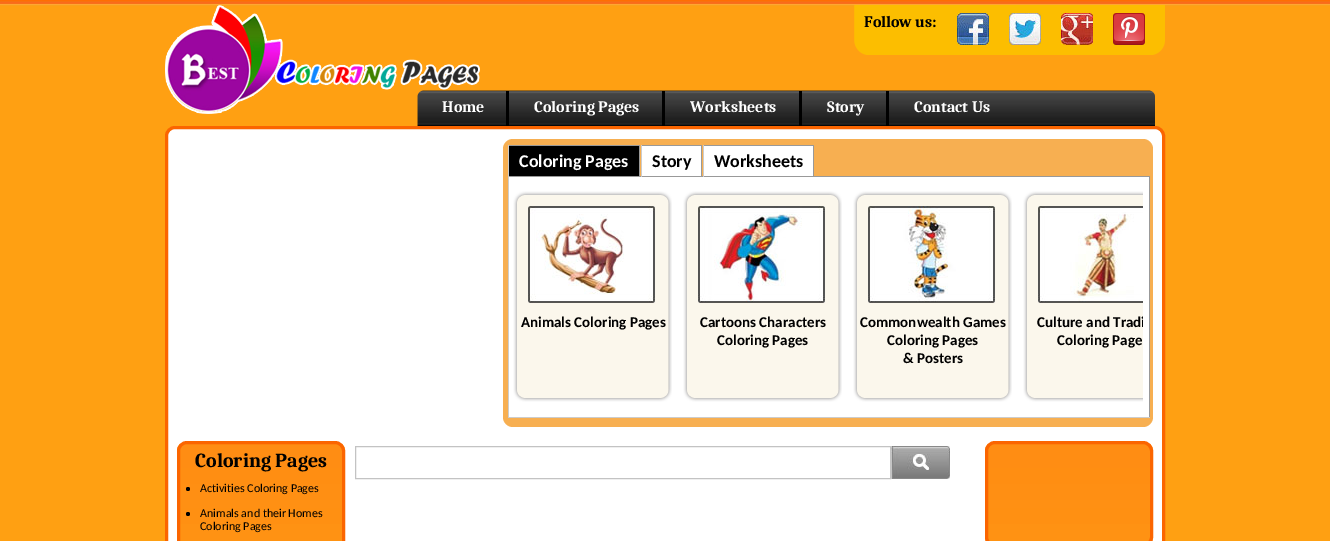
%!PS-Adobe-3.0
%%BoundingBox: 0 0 1330 541
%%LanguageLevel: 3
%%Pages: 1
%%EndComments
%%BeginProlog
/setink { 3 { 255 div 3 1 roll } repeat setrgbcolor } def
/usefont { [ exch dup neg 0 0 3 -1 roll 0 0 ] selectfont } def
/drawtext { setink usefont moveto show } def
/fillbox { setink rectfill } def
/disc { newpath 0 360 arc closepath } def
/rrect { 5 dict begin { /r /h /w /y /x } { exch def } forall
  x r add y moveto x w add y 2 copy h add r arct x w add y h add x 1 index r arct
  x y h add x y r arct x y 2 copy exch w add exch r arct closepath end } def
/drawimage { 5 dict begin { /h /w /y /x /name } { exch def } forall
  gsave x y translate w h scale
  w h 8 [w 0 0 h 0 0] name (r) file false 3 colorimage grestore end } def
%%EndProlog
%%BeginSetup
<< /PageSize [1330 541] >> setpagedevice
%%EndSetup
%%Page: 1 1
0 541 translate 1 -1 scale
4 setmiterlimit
0 0 1330 541 255 160 18 fillbox
(assets/img1.rgb) 0 0 1330 6 drawimage
(assets/img2.rgb) 165 5 315 109 drawimage
(assets/img3.rgb) 854 5 311 50 drawimage
(Follow us:) 864 27 /Caladea-Bold 16 0 0 0 drawtext
(assets/img4.rgb) 957 13 32 32 drawimage
(assets/img5.rgb) 1009 13 32 32 drawimage
(assets/img6.rgb) 1061 13 32 32 drawimage
(assets/img7.rgb) 1113 13 32 32 drawimage
(assets/img8.rgb) 417 90 738 36 drawimage
506 91 3 35 0 0 0 fillbox
(Home) 442 112 /Caladea-Bold 16 255 255 255 drawtext
662 91 3 35 0 0 0 fillbox
(Coloring Pages) 534 112 /Caladea-Bold 16 255 255 255 drawtext
799 91 3 35 0 0 0 fillbox
(Worksheets) 690 112 /Caladea-Bold 16 255 255 255 drawtext
886 91 3 35 0 0 0 fillbox
(Story) 827 112 /Caladea-Bold 16 255 255 255 drawtext
(Contact Us) 914 112 /Caladea-Bold 16 255 255 255 drawtext
166.5 127.5 997 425 8.5 rrect gsave fill grestore
251 101 0 setink
3 setlinewidth
stroke
247 175 81 setink
503 139 650 288 10 rrect fill
509 146 130 30 0 0 0 fillbox
508 145 132 1 153 153 153 fillbox
639 145 1 32 153 153 153 fillbox
640 176 510 1 153 153 153 fillbox
1149 176 1 242 153 153 153 fillbox
508 417 642 1 204 204 204 fillbox
508 176 1 242 204 204 204 fillbox
508 176 132 1 153 153 153 fillbox
508 145 1 32 204 204 204 fillbox
(Coloring Pages) 519 167 /Carlito-Bold 18 255 255 255 drawtext
642 146 59 30 255 255 255 fillbox
641 145 61 1 153 153 153 fillbox
701 145 1 32 153 153 153 fillbox
641 145 1 32 204 204 204 fillbox
(Story) 652 167 /Carlito-Bold 18 0 0 0 drawtext
704 146 109 30 255 255 255 fillbox
703 145 111 1 153 153 153 fillbox
813 145 1 32 153 153 153 fillbox
703 145 1 32 204 204 204 fillbox
(Worksheets) 714 167 /Carlito-Bold 18 0 0 0 drawtext
509 177 640 240 255 255 255 fillbox
(assets/img9.rgb) 513 191 159 211 drawimage
(assets/img10.rgb) 528 206 127 97 drawimage
(Animals Coloring Pages) 521 327 /Carlito-Bold 15 0 0 0 drawtext
(assets/img9.rgb) 683 191 159 211 drawimage
(assets/img11.rgb) 698 206 127 97 drawimage
(Cartoons Characters) 700 327 /Carlito-Bold 15 0 0 0 drawtext
(Coloring Pages) 717 345 /Carlito-Bold 15 0 0 0 drawtext
(assets/img9.rgb) 853 191 159 211 drawimage
(assets/img12.rgb) 868 206 127 97 drawimage
(Commonwealth Games) 860 327 /Carlito-Bold 15 0 0 0 drawtext
(Coloring Pages) 887 345 /Carlito-Bold 15 0 0 0 drawtext
(& Posters) 903 363 /Carlito-Bold 15 0 0 0 drawtext
(assets/img13.rgb) 1023 191 120 211 drawimage
(assets/img14.rgb) 1038 206 105 97 drawimage
gsave
513 191 630 240 rectclip
(Culture and Tradi) 1037 327 /Carlito-Bold 15 0 0 0 drawtext
grestore
(Coloring Page) 1057 345 /Carlito-Bold 15 0 0 0 drawtext
(assets/img15.rgb) 177 444 168 97 drawimage
251 101 0 setink
178.5 442.5 165 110 8.5 rrect stroke
(Coloring Pages) 195 467 /Caladea-Bold 20 0 0 0 drawtext
188 489 2 disc fill
(Activities Coloring Pages) 200 492 /Carlito-Regular 12 0 0 0 drawtext
188 514 2 disc fill
(Animals and their Homes) 200 517 /Carlito-Regular 12 0 0 0 drawtext
(Coloring Pages) 200 530 /Carlito-Regular 12 0 0 0 drawtext
195 195 195 setink
1 setlinewidth
355.5 446.5 535 32 rectstroke
(assets/img16.rgb) 891 446 59 33 drawimage
(assets/img17.rgb) 985 444 168 97 drawimage
251 101 0 setink
3 setlinewidth
986.5 442.5 165 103 8.5 rrect stroke
showpage
%%EOF
